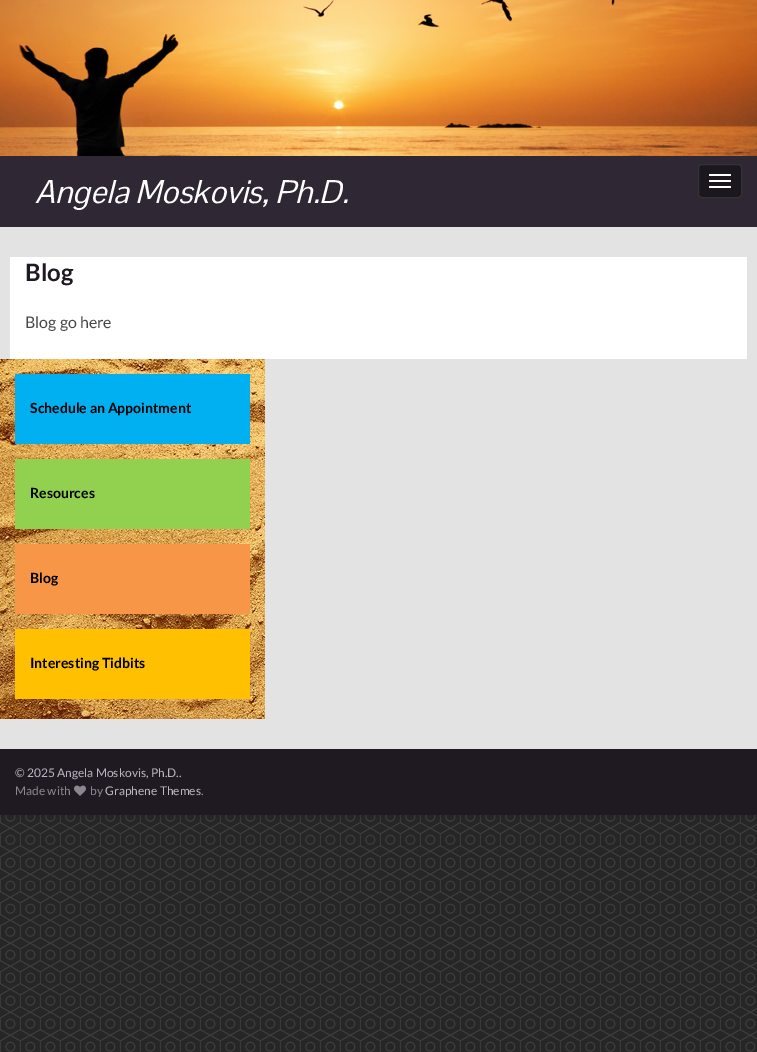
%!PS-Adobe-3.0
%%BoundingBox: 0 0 757 1052
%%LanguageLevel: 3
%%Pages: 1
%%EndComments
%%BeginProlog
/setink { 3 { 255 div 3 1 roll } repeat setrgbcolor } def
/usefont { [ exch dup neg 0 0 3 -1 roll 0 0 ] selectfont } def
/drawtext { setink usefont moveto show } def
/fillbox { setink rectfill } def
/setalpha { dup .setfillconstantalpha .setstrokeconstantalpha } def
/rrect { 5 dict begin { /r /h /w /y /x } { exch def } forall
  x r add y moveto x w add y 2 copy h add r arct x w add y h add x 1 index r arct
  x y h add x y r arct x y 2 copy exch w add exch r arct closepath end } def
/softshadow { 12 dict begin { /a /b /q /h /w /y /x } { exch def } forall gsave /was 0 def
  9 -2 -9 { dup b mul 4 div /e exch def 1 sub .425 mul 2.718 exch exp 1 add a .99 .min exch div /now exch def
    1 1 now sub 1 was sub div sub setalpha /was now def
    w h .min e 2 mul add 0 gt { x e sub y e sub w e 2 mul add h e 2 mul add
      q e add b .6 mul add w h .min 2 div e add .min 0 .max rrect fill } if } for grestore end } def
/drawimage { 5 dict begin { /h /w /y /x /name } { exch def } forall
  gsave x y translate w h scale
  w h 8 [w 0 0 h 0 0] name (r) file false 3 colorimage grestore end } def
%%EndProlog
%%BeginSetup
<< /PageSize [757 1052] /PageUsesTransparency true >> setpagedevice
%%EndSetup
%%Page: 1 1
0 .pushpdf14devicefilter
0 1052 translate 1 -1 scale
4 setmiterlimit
0 0 757 1052 255 255 255 fillbox
(assets/img1.rgb) 0 815 757 237 drawimage
0 0 0 setink
0 0 757 815 0 5 0.1 softshadow
(assets/img2.rgb) 0 0 757 156 drawimage
0 156 757 71 47 39 51 fillbox
(Angela Moskovis, Ph.D.) 35 203 /PontanoSans-Italic 32 255 255 255 drawtext
28 23 31 setink
698.5 164.5 43 33 3.5 rrect gsave fill grestore
51 51 51 setink
stroke
255 255 255 setink
709 174 22 2 1 rrect fill
709 180 22 2 1 rrect fill
709 186 22 2 1 rrect fill
0 227 757 522 227 227 227 fillbox
10 257 737 102 255 255 255 fillbox
(Blog) 25 281 /Lato-Bold 24 31 26 34 drawtext
(Blog go here) 25 328 /Lato-Regular 16 74 71 75 drawtext
(assets/img3.rgb) 0 359 265 360 drawimage
15 374 235 70 1 176 241 fillbox
(Schedule an Appointment) 30 413 /Lato-Bold 14 0 0 0 drawtext
15 459 235 70 146 209 79 fillbox
(Resources) 30 498 /Lato-Bold 14 0 0 0 drawtext
15 544 235 70 247 150 71 fillbox
(Blog) 30 583 /Lato-Bold 14 0 0 0 drawtext
15 629 235 70 255 192 1 fillbox
(Interesting Tidbits) 30 668 /Lato-Bold 14 0 0 0 drawtext
0 749 757 66 31 26 34 fillbox
(© 2025 Angela Moskovis, Ph.D..) 15 777 /Lato-Regular 12 188 180 193 drawtext
(Made with) 15 795 /Lato-Regular 12 141 134 145 drawtext
(assets/img4.rgb) 74 785 12 11 drawimage
(by) 90 795 /Lato-Regular 12 141 134 145 drawtext
(Graphene Themes) 105 795 /Lato-Regular 12 188 186 189 drawtext
(.) 201 795 /Lato-Regular 12 141 134 145 drawtext
.poppdf14devicefilter showpage
%%EOF
